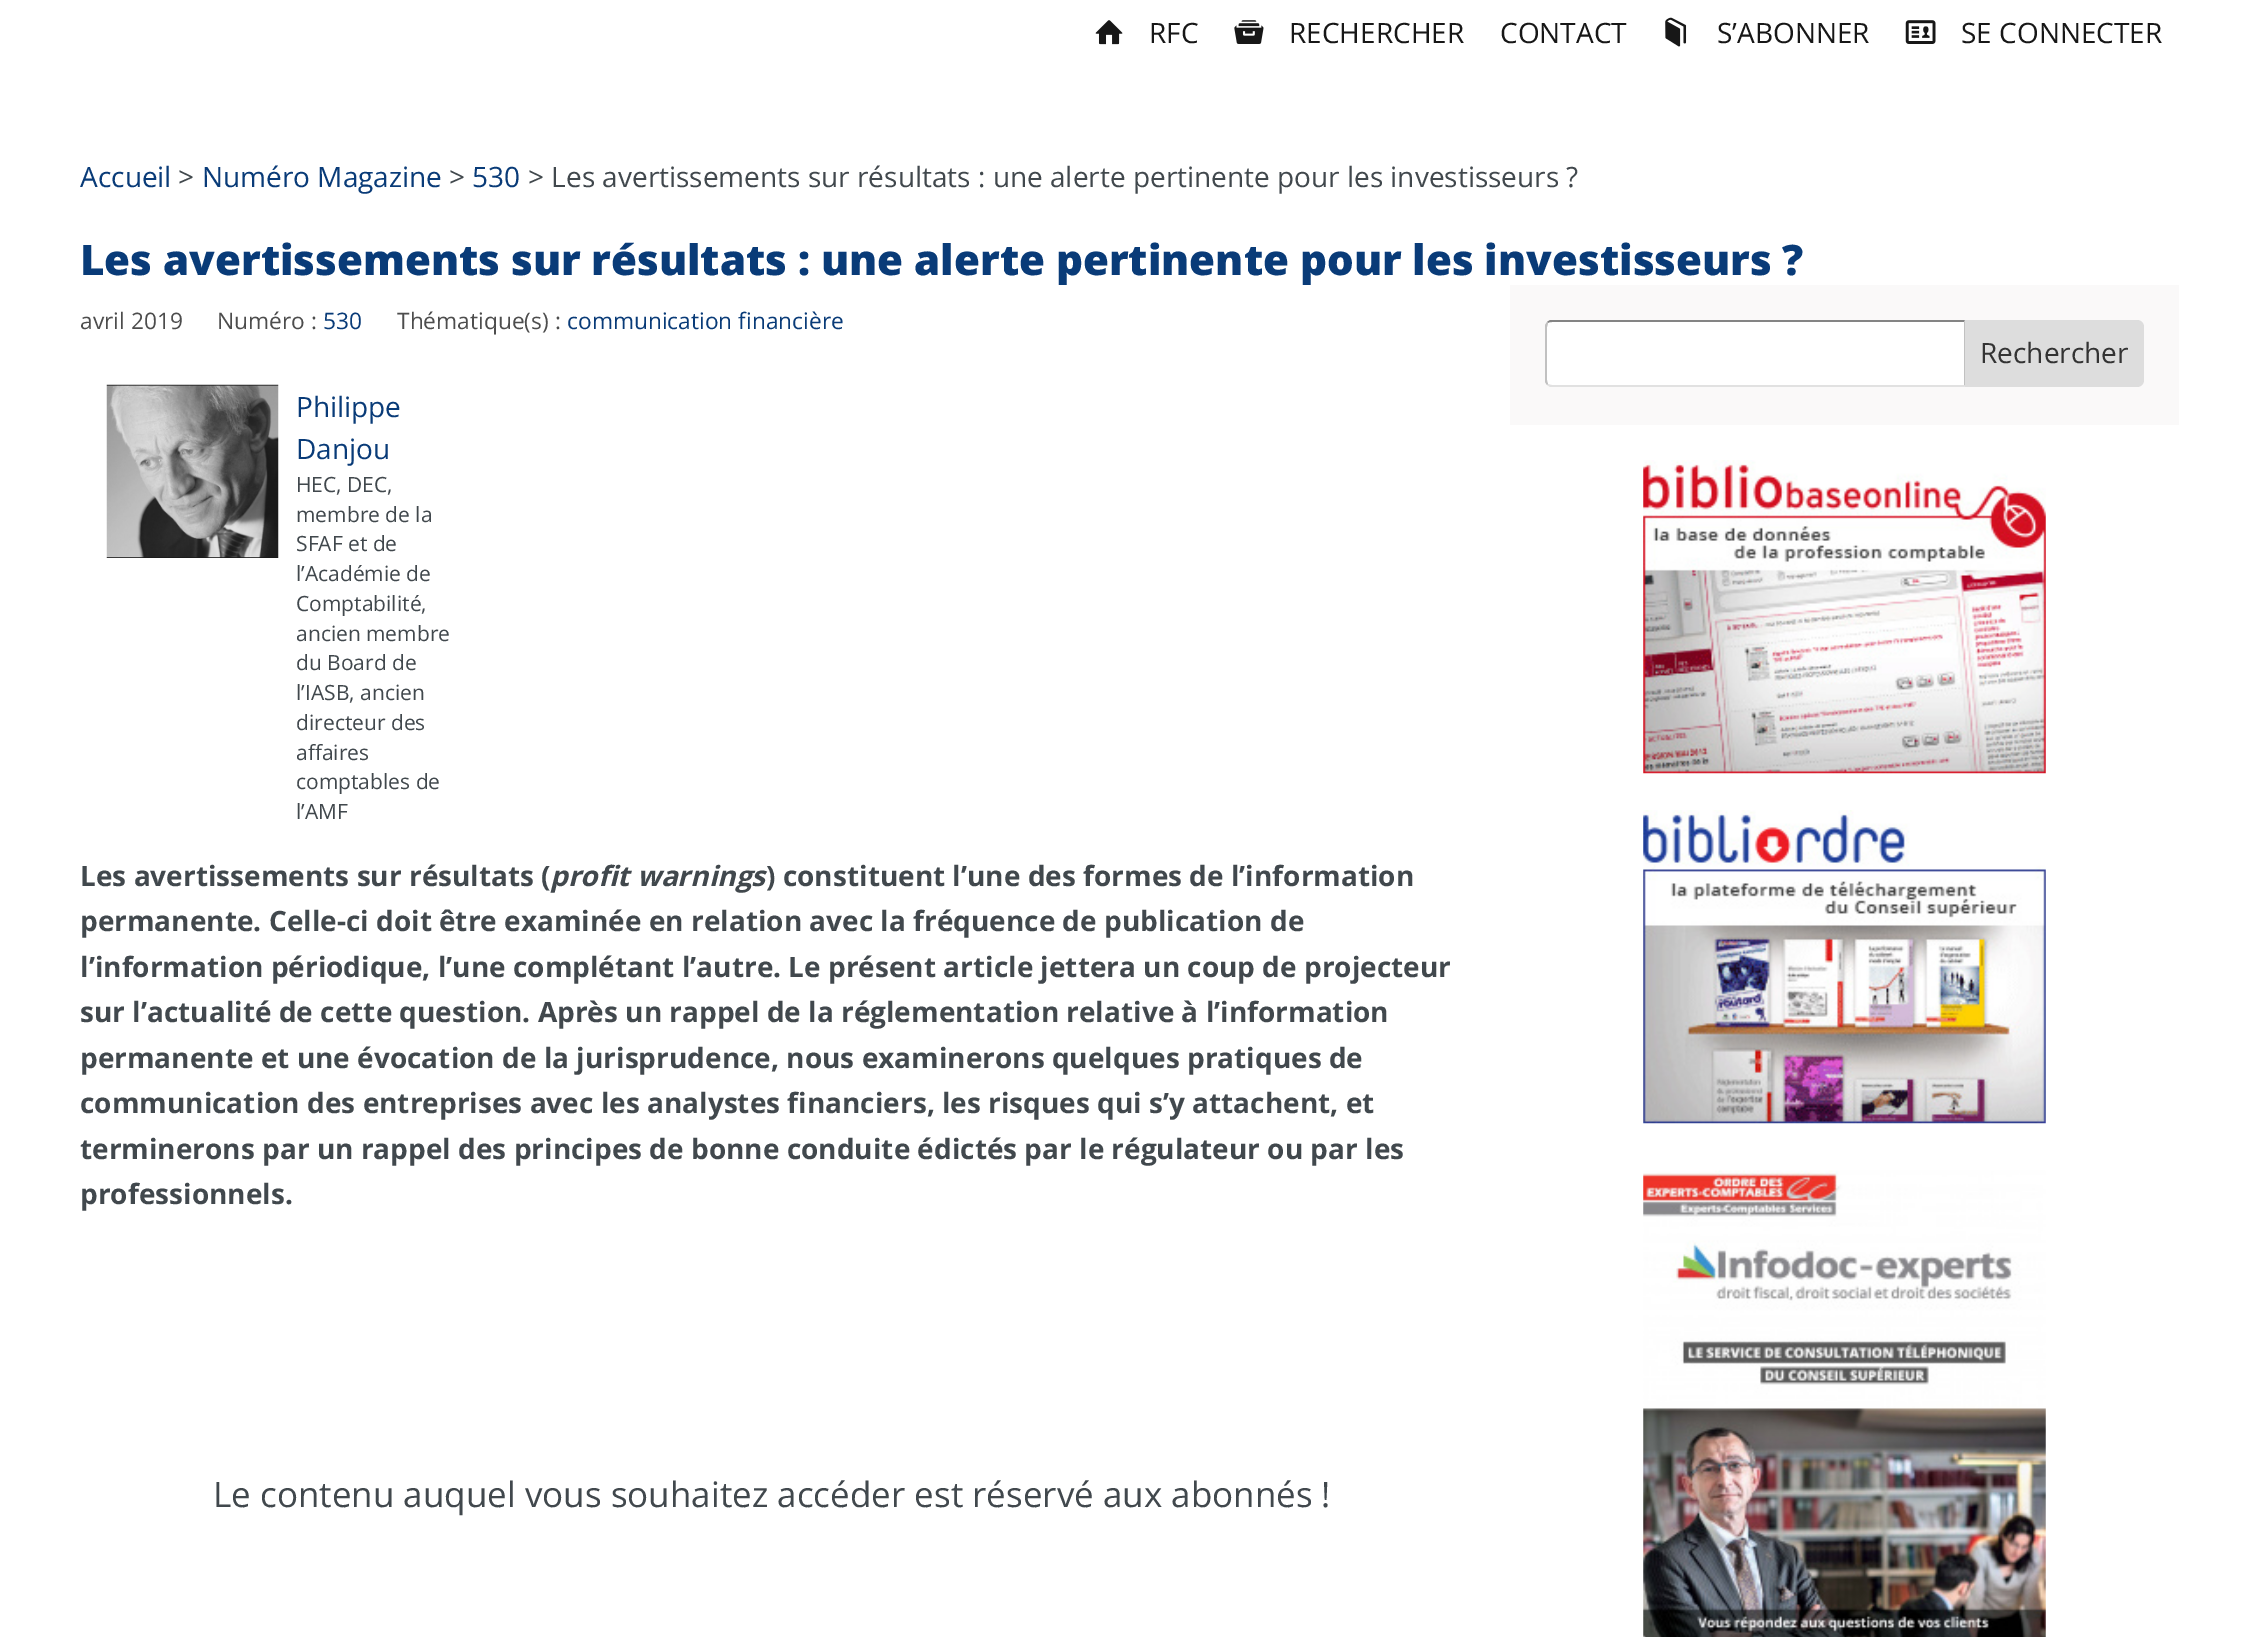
%!PS-Adobe-3.0
%%BoundingBox: 0 0 2259 1637
%%LanguageLevel: 3
%%Pages: 1
%%EndComments
%%BeginProlog
/setink { 3 { 255 div 3 1 roll } repeat setrgbcolor } def
/usefont { [ exch dup neg 0 0 3 -1 roll 0 0 ] selectfont } def
/drawtext { setink usefont moveto show } def
/fillbox { setink rectfill } def
/drawimage { 5 dict begin { /h /w /y /x /name } { exch def } forall
  gsave x y translate w h scale
  w h 8 [w 0 0 h 0 0] name (r) file false 3 colorimage grestore end } def
%%EndProlog
%%BeginSetup
<< /PageSize [2259 1637] >> setpagedevice
%%EndSetup
%%Page: 1 1
0 1637 translate 1 -1 scale
4 setmiterlimit
0 0 2259 1637 255 255 255 fillbox
(assets/img1.rgb) 1095 20 28 25 drawimage
(RFC) 1149 43 /OpenSans-Regular 28 23 23 23 drawtext
(assets/img2.rgb) 1234 20 30 24 drawimage
(RECHERCHER) 1289 43 /OpenSans-Regular 28 23 23 23 drawtext
(CONTACT) 1500 43 /OpenSans-Regular 28 23 23 23 drawtext
(assets/img3.rgb) 1665 17 22 30 drawimage
(S’ABONNER) 1717 43 /OpenSans-Regular 28 23 23 23 drawtext
(assets/img4.rgb) 1905 20 31 24 drawimage
(SE CONNECTER) 1961 43 /OpenSans-Regular 28 23 23 23 drawtext
(Accueil) 80 187 /OpenSans-Regular 28 9 59 120 drawtext
(>) 178 187 /OpenSans-Regular 28 65 72 77 drawtext
(Numéro Magazine) 202 187 /OpenSans-Regular 28 9 59 120 drawtext
(>) 449 187 /OpenSans-Regular 28 65 72 77 drawtext
(530) 472 187 /OpenSans-Regular 28 9 59 120 drawtext
(> Les avertissements sur résultats : une alerte pertinente pour les investisseurs ?) 528 187 /OpenSans-Regular 28 65 72 77 drawtext
(Les avertissements sur résultats : une alerte pertinente pour les investisseurs ?) 80 275 /OpenSans-ExtraBold 42 9 59 120 drawtext
(avril 2019) 80 329 /OpenSans-Regular 22.75 77 77 77 drawtext
(Numéro :) 217 329 /OpenSans-Regular 22.75 77 77 77 drawtext
(530) 323 329 /OpenSans-Regular 22.75 9 59 120 drawtext
(Thématique\(s\) :) 397 329 /OpenSans-Regular 22.75 77 77 77 drawtext
(communication financière) 567 329 /OpenSans-Regular 22.75 9 59 120 drawtext
(assets/img5.rgb) 106 384 173 174 drawimage
(Philippe) 296 417 /OpenSans-Regular 28 9 59 120 drawtext
(Danjou) 296 459 /OpenSans-Regular 28 9 59 120 drawtext
(HEC, DEC,) 296 492 /OpenSans-Regular 21 65 72 77 drawtext
(membre de la) 296 522 /OpenSans-Regular 21 65 72 77 drawtext
(SFAF et de) 296 551 /OpenSans-Regular 21 65 72 77 drawtext
(l’Académie de) 296 581 /OpenSans-Regular 21 65 72 77 drawtext
(Comptabilité,) 296 611 /OpenSans-Regular 21 65 72 77 drawtext
(ancien membre) 296 641 /OpenSans-Regular 21 65 72 77 drawtext
(du Board de) 296 670 /OpenSans-Regular 21 65 72 77 drawtext
(l’IASB, ancien) 296 700 /OpenSans-Regular 21 65 72 77 drawtext
(directeur des) 296 730 /OpenSans-Regular 21 65 72 77 drawtext
(affaires) 296 760 /OpenSans-Regular 21 65 72 77 drawtext
(comptables de) 296 789 /OpenSans-Regular 21 65 72 77 drawtext
(l’AMF) 296 819 /OpenSans-Regular 21 65 72 77 drawtext
(Les avertissements sur résultats \() 80 886 /OpenSans-Bold 28 65 72 77 drawtext
(profit warnings) 550 886 /OpenSans-BoldItalic 28 65 72 77 drawtext
(\) constituent l’une des formes de l’information) 766 886 /OpenSans-Bold 28 65 72 77 drawtext
(permanente. Celle-ci doit être examinée en relation avec la fréquence de publication de) 80 931 /OpenSans-Bold 28 65 72 77 drawtext
(l’information périodique, l’une complétant l’autre. Le présent article jettera un coup de projecteur) 80 977 /OpenSans-Bold 28 65 72 77 drawtext
(sur l’actualité de cette question. Après un rappel de la réglementation relative à l’information) 80 1022 /OpenSans-Bold 28 65 72 77 drawtext
(permanente et une évocation de la jurisprudence, nous examinerons quelques pratiques de) 80 1068 /OpenSans-Bold 28 65 72 77 drawtext
(communication des entreprises avec les analystes financiers, les risques qui s’y attachent, et) 80 1113 /OpenSans-Bold 28 65 72 77 drawtext
(terminerons par un rappel des principes de bonne conduite édictés par le régulateur ou par les) 80 1159 /OpenSans-Bold 28 65 72 77 drawtext
(professionnels.) 80 1204 /OpenSans-Bold 28 65 72 77 drawtext
(Le contenu auquel vous souhaitez accéder est réservé aux abonnés !) 213 1507 /OpenSans-Regular 35 65 72 77 drawtext
1510 285 669 140 250 249 249 fillbox
255 255 255 setink
1552 320 moveto 1965 320 lineto 1965 387 lineto 1552 387 lineto 1548 387 1545 384 1545 380 curveto 1545 327 lineto 1545 323 1548 320 1552 320 curveto closepath fill
132 132 132 setink
1552 322 moveto 1550 322 1549 322 1548 323 curveto 1547 322 lineto 1550 320 lineto 1965 320 lineto 1964 322 lineto closepath fill
193 193 193 setink
1965 320 moveto 1965 386 lineto 1964 385 lineto 1964 322 lineto closepath fill
225 225 225 setink
1550 387 moveto 1547 385 lineto 1548 384 lineto 1549 384 1550 385 1552 385 curveto 1964 385 lineto 1965 387 lineto closepath fill
193 193 193 setink
1545 325 moveto 1547 322 lineto 1548 323 lineto 1548 324 1547 326 1547 327 curveto 1547 380 lineto 1547 382 1548 383 1548 384 curveto 1547 385 lineto 1545 382 lineto closepath fill
221 221 221 setink
1965 320 moveto 2137 320 lineto 2141 320 2144 323 2144 327 curveto 2144 380 lineto 2144 384 2141 387 2137 387 curveto 1965 387 lineto closepath fill
(Rechercher) 1980 363 /OpenSans-Regular 28 51 51 51 drawtext
(assets/img6.rgb) 1643 460 403 314 drawimage
(assets/img7.rgb) 1643 810 403 314 drawimage
(assets/img8.rgb) 1643 1170 403 467 drawimage
showpage
%%EOF
